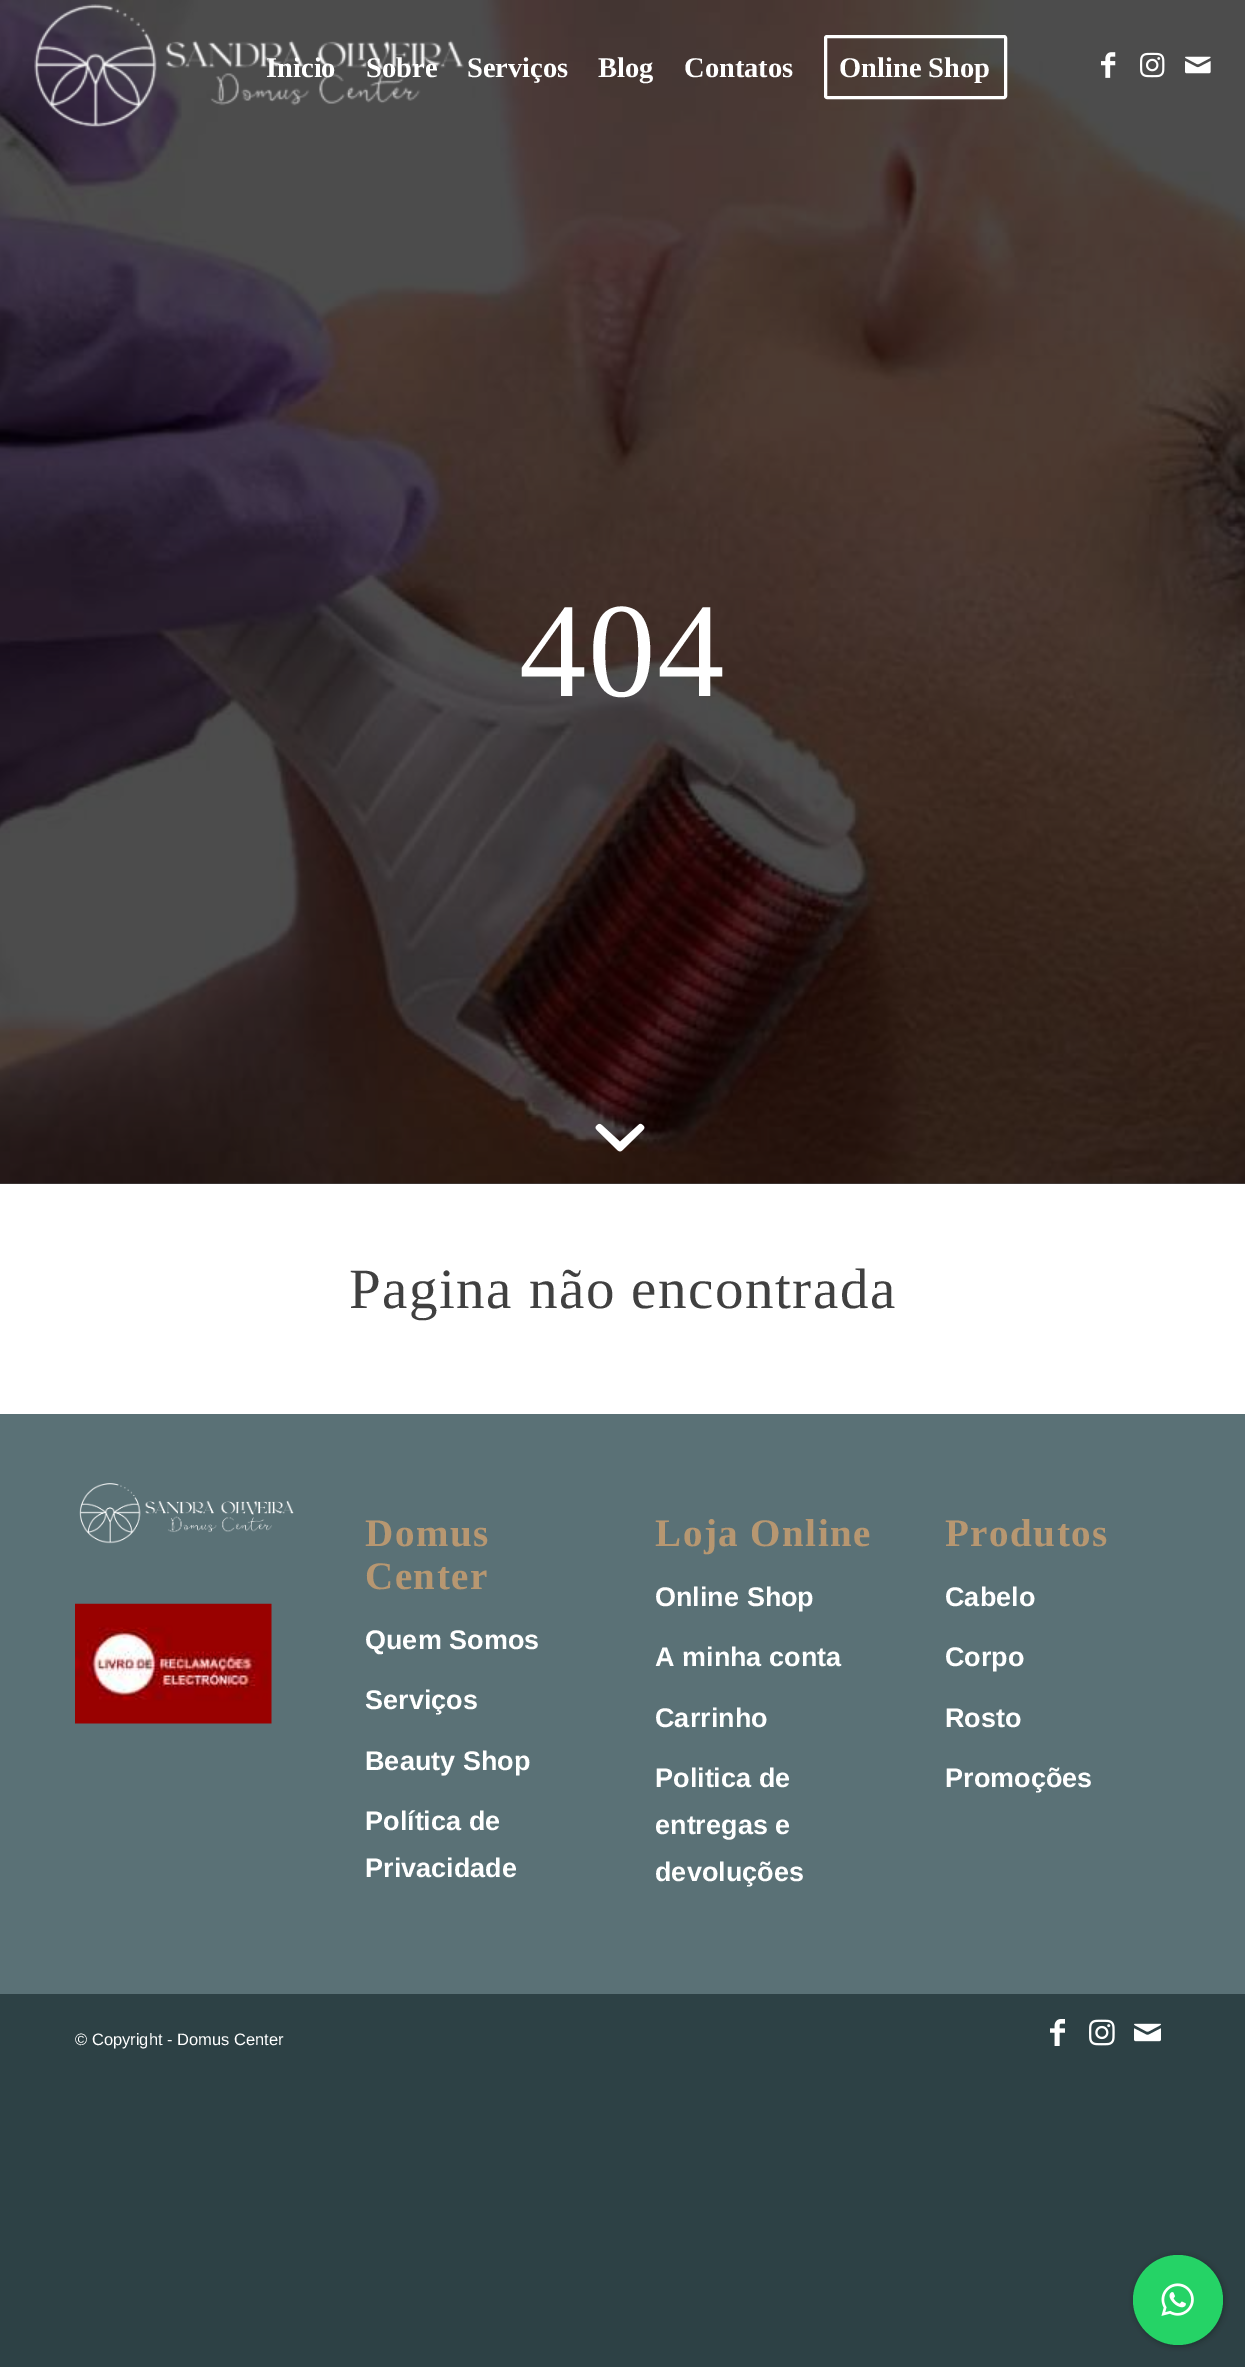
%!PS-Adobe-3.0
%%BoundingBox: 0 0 1245 2367
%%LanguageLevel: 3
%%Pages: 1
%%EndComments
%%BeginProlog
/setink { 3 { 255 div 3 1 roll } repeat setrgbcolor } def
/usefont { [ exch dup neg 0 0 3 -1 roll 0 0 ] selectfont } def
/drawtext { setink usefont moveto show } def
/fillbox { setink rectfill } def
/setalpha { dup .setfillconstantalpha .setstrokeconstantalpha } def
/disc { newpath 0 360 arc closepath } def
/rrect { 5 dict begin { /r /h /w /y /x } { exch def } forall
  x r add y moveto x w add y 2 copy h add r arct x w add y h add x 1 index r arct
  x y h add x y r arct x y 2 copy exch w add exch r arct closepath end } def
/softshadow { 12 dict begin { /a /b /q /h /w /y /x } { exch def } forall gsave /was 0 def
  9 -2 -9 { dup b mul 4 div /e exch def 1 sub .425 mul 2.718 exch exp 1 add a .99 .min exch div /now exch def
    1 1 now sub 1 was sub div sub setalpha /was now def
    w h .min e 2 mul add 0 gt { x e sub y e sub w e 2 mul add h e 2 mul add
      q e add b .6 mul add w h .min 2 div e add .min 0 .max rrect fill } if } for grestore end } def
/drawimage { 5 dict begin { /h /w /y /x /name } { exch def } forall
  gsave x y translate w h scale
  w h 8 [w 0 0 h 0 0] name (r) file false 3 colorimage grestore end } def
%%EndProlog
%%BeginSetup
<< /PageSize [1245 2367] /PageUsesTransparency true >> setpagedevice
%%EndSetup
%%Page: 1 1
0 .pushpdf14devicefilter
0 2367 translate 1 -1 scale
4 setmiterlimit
0 0 1245 2367 45 65 69 fillbox
0 1184 1245 230 255 255 255 fillbox
0 1183 1245 1 77 77 77 fillbox
(assets/img5.rgb) 0 0 1245 1184 drawimage
(assets/img1.rgb) 34 4 430 124 drawimage
(Inicio) 266 77 /LiberationSerif-Bold 28.5 255 255 255 drawtext
(Sobre) 366 77 /LiberationSerif-Bold 28.5 255 255 255 drawtext
(Serviços) 467 77 /LiberationSerif-Bold 28.5 255 255 255 drawtext
(Blog) 598 77 /LiberationSerif-Bold 28.5 255 255 255 drawtext
(Contatos) 684 77 /LiberationSerif-Bold 28.5 255 255 255 drawtext
3 setlinewidth
825.5 36.5 180 61 1.5 rrect stroke
(Online Shop) 839 77 /LiberationSerif-Bold 28.5 255 255 255 drawtext
(assets/img2.rgb) 1101 52 15 26 drawimage
(assets/img3.rgb) 1140 52 25 26 drawimage
(assets/img4.rgb) 1185 56 26 18 drawimage
/LiberationSerif-Regular 135 usefont
519 696 moveto 1.5 0 (404) ashow
(assets/img6.rgb) 595 1123 50 29 drawimage
/LiberationSerif-Regular 57 usefont
64 64 64 setink
349 1308 moveto 1.5 0 (Pagina não encontrada) ashow
0 1414 1245 580 90 113 118 fillbox
(assets/img7.rgb) 79 1483 215 61 drawimage
(assets/img8.rgb) 75 1603 197 121 drawimage
/LiberationSerif-Bold 39 usefont
183 151 113 setink
365 1546 moveto 1.5 0 (Domus) ashow
365 1589 moveto 1.5 0 (Center) ashow
(Quem Somos) 365 1649 /LiberationSans-Bold 27 255 255 255 drawtext
(Serviços) 365 1709 /LiberationSans-Bold 27 255 255 255 drawtext
(Beauty Shop) 365 1770 /LiberationSans-Bold 27 255 255 255 drawtext
(Política de) 365 1830 /LiberationSans-Bold 27 255 255 255 drawtext
(Privacidade) 365 1877 /LiberationSans-Bold 27 255 255 255 drawtext
/LiberationSerif-Bold 39 usefont
183 151 113 setink
655 1546 moveto 1.5 0 (Loja Online) ashow
(Online Shop) 655 1606 /LiberationSans-Bold 27 255 255 255 drawtext
(A minha conta) 655 1666 /LiberationSans-Bold 27 255 255 255 drawtext
(Carrinho) 655 1727 /LiberationSans-Bold 27 255 255 255 drawtext
(Politica de) 655 1787 /LiberationSans-Bold 27 255 255 255 drawtext
(entregas e) 655 1834 /LiberationSans-Bold 27 255 255 255 drawtext
(devoluções) 655 1881 /LiberationSans-Bold 27 255 255 255 drawtext
/LiberationSerif-Bold 39 usefont
183 151 113 setink
945 1546 moveto 1.5 0 (Produtos) ashow
(Cabelo) 945 1606 /LiberationSans-Bold 27 255 255 255 drawtext
(Corpo) 945 1666 /LiberationSans-Bold 27 255 255 255 drawtext
(Rosto) 945 1727 /LiberationSans-Bold 27 255 255 255 drawtext
(Promoções) 945 1787 /LiberationSans-Bold 27 255 255 255 drawtext
(© Copyright - Domus Center) 75 2045 /LiberationSans-Regular 16.5 255 255 255 drawtext
(assets/img9.rgb) 1050 2019 15 27 drawimage
(assets/img10.rgb) 1089 2019 26 27 drawimage
(assets/img11.rgb) 1134 2023 27 19 drawimage
0 0 0 setink
1134 2256 90 90 45 3 0.3 softshadow
37 211 102 setink
1178 2300 45 disc fill
(assets/img12.rgb) 1161 2283 33 33 drawimage
.poppdf14devicefilter showpage
%%EOF
